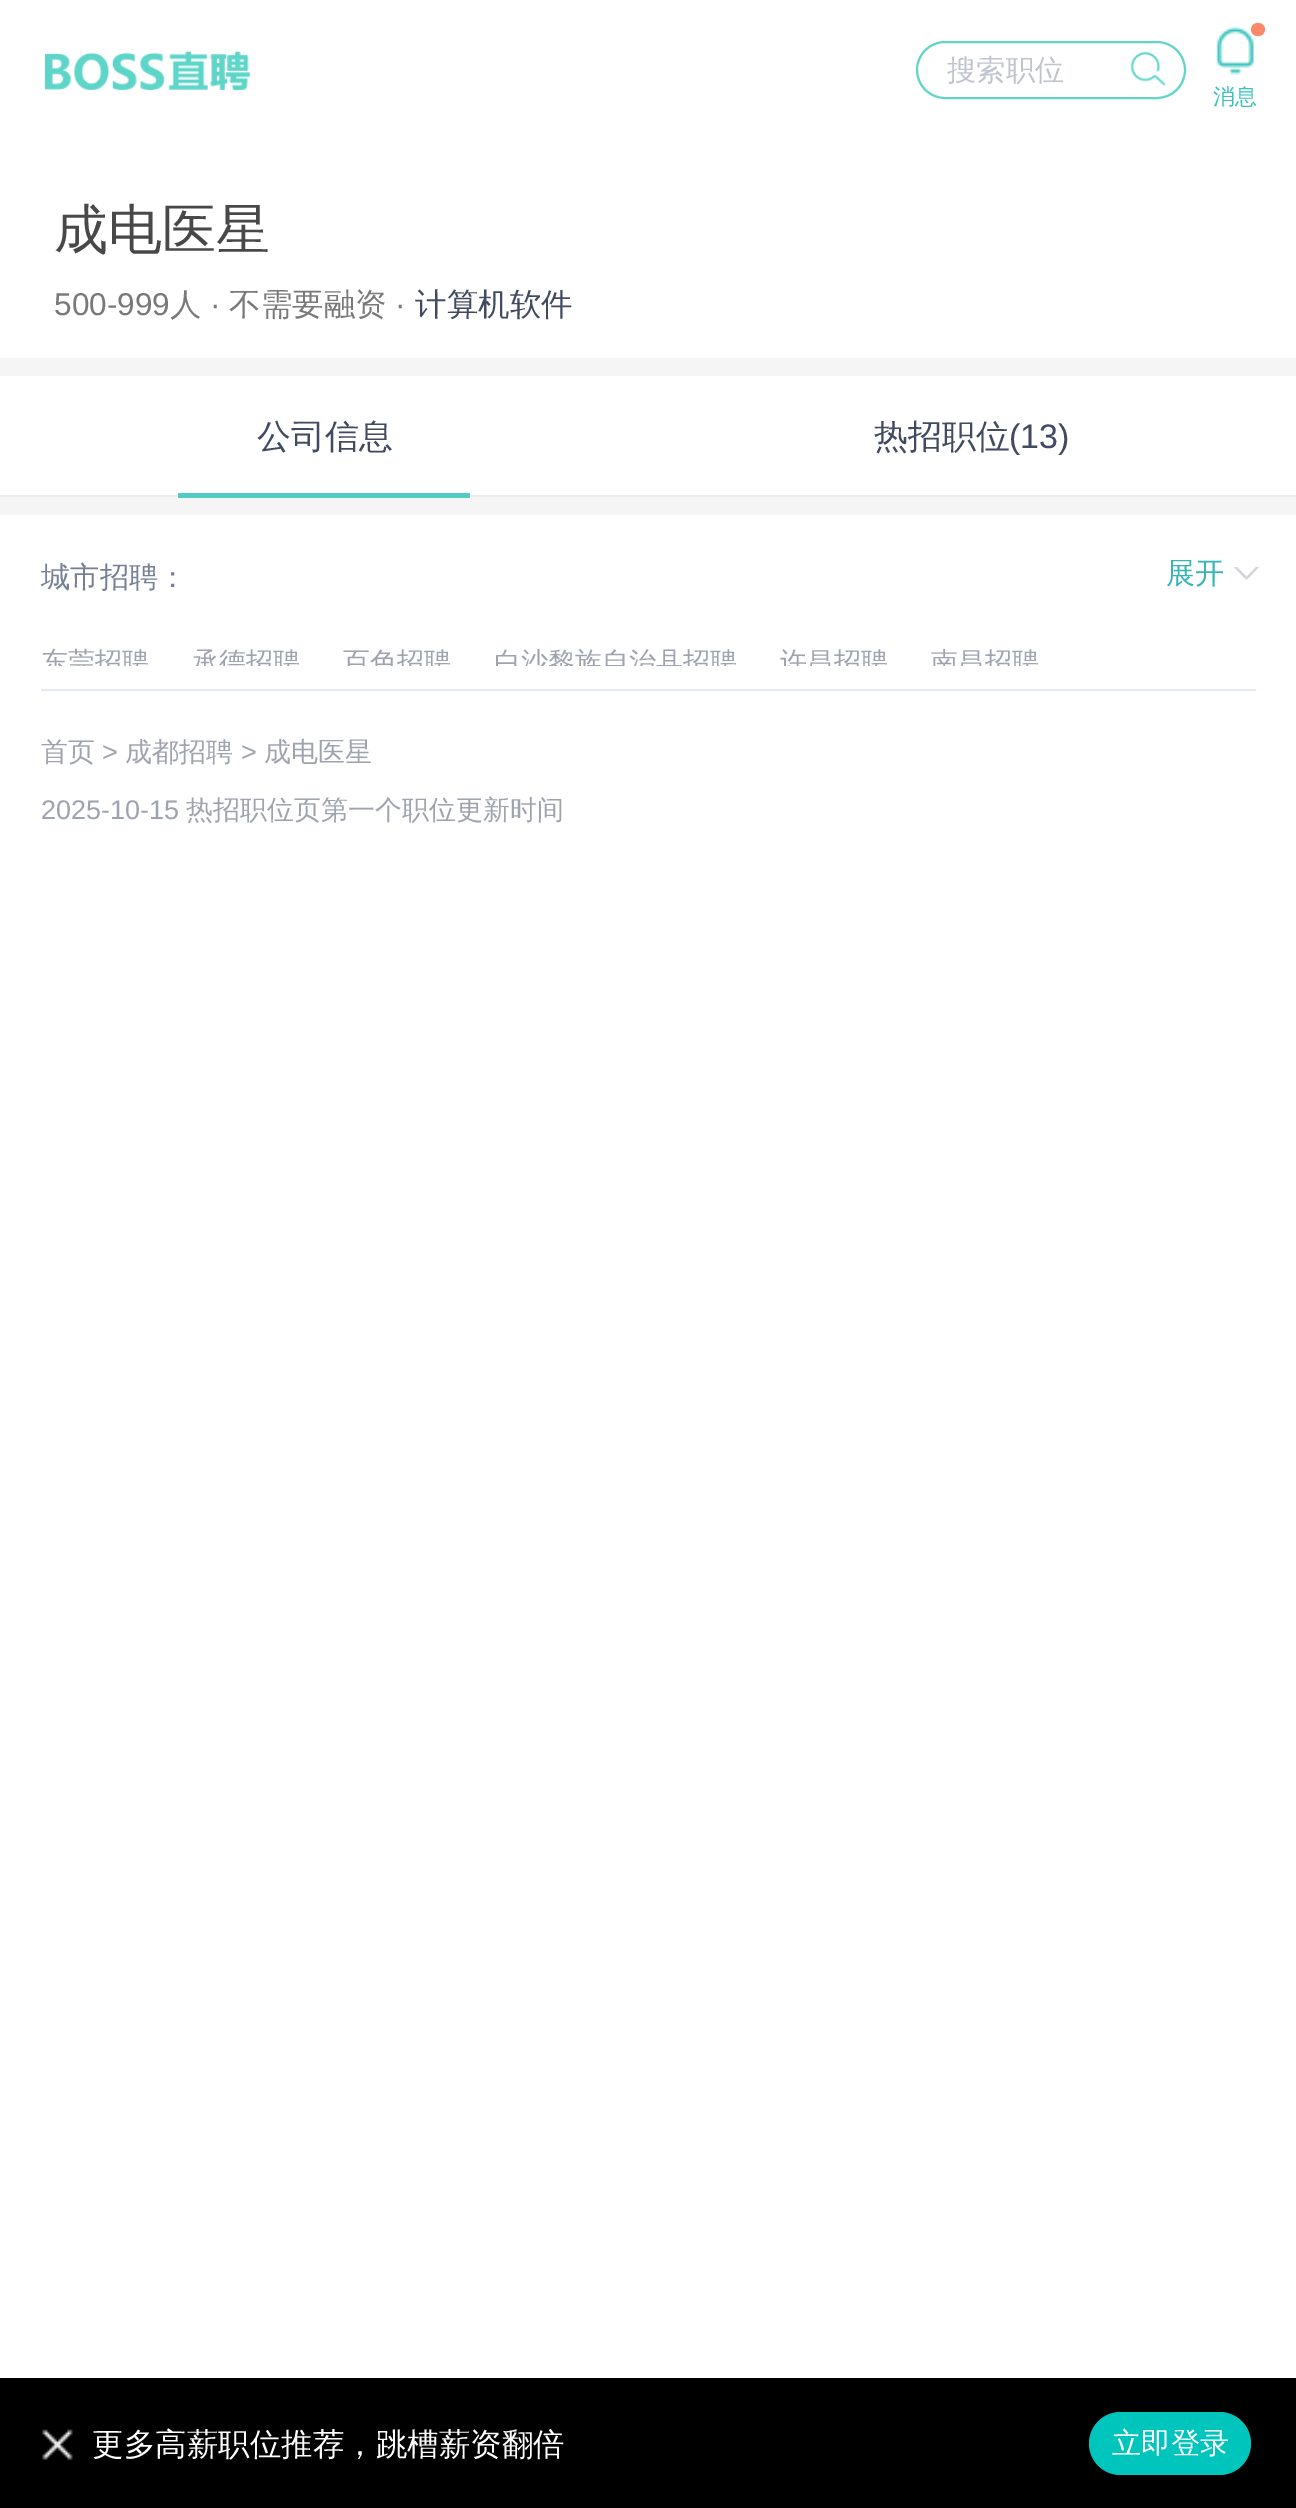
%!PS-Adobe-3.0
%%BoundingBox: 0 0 1296 2508
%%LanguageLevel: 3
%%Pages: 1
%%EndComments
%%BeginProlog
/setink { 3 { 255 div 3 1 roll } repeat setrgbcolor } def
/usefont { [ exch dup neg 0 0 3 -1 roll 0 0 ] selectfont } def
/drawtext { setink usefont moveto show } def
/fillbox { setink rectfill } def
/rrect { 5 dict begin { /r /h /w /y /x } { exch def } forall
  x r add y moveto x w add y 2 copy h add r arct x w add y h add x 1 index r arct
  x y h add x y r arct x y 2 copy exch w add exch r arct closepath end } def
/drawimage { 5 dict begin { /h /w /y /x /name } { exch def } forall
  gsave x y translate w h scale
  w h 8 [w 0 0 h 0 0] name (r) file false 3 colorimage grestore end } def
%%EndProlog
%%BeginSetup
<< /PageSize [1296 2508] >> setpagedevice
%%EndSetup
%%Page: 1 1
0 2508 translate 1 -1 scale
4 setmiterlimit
0 0 1296 2508 255 255 255 fillbox
(assets/img1.rgb) 45 51 205 39 drawimage
98 213 200 setink
2 setlinewidth
917 42 268 56 28 rrect stroke
(搜索职位) 947 80 /WenQuanYiZenHei-Medium 29.25 192 196 207 drawtext
(assets/img2.rgb) 1130 51 36 35 drawimage
(assets/img3.rgb) 1216 26 38 49 drawimage
253 137 107 setink
1251 23 14 13 6.5 rrect fill
(消息) 1213 104 /WenQuanYiZenHei-Medium 22 55 194 188 drawtext
0 358 1296 18 245 245 246 fillbox
(成电医星) 54 248 /WenQuanYiZenHei-Medium 54 72 72 72 drawtext
(500-999) 54 315 /LiberationSans-Regular 31.5 121 121 121 drawtext
(人) 170 315 /WenQuanYiZenHei-Medium 31.5 121 121 121 drawtext
(·) 210 315 /LiberationSans-Regular 31.5 121 121 121 drawtext
(不需要融资) 229 315 /WenQuanYiZenHei-Medium 31.5 121 121 121 drawtext
(·) 395 315 /LiberationSans-Regular 31.5 121 121 121 drawtext
(计算机软件) 415 315 /WenQuanYiZenHei-Medium 31.5 65 74 96 drawtext
0 495 1296 2 235 235 235 fillbox
(公司信息) 257 448 /WenQuanYiZenHei-Medium 34 65 74 96 drawtext
0 497 1296 18 245 245 246 fillbox
178 493 292 5 83 202 195 fillbox
(热招职位) 874 448 /WenQuanYiZenHei-Medium 34 65 74 96 drawtext
(\(13\)) 1009 448 /LiberationSans-Regular 34 65 74 96 drawtext
(城市招聘：) 41 587 /WenQuanYiZenHei-Medium 29.25 118 127 150 drawtext
gsave
0 515 1296 151 rectclip
(东莞招聘) 41 671 /WenQuanYiZenHei-Medium 27 159 163 176 drawtext
(承德招聘) 192 671 /WenQuanYiZenHei-Medium 27 159 163 176 drawtext
(百色招聘) 343 671 /WenQuanYiZenHei-Medium 27 159 163 176 drawtext
(白沙黎族自治县招聘) 494 671 /WenQuanYiZenHei-Medium 27 159 163 176 drawtext
(许昌招聘) 780 671 /WenQuanYiZenHei-Medium 27 159 163 176 drawtext
(南昌招聘) 931 671 /WenQuanYiZenHei-Medium 27 159 163 176 drawtext
grestore
(展开) 1166 583 /WenQuanYiZenHei-Medium 29.25 54 181 181 drawtext
209 212 219 setink
1259 567 moveto 1246.5 580 lineto 1246.5 576.5 lineto 1256 567 lineto closepath fill
1246.5 580 moveto 1234 567 lineto 1237 567 lineto 1246.5 576.5 lineto closepath fill
229 233 243 setink
41 689 1215 2 1 rrect fill
(首页) 41 761 /WenQuanYiZenHei-Medium 27 159 163 176 drawtext
(>) 102 761 /LiberationSans-Regular 27 159 163 176 drawtext
(成都招聘) 125 761 /WenQuanYiZenHei-Medium 27 159 163 176 drawtext
(>) 241 761 /LiberationSans-Regular 27 159 163 176 drawtext
(成电医星) 264 761 /WenQuanYiZenHei-Medium 27 159 163 176 drawtext
(2025-10-15) 41 819 /LiberationSans-Regular 27 159 163 176 drawtext
(热招职位页第一个职位更新时间) 186 819 /WenQuanYiZenHei-Medium 27 159 163 176 drawtext
0 2378 1296 130 0 0 0 fillbox
(assets/img4.rgb) 42 2429 31 31 drawimage
(更多高薪职位推荐，跳槽薪资翻倍) 92 2455 /WenQuanYiZenHei-Medium 31.5 255 255 255 drawtext
0 197 189 setink
1089 2412 162 63 31.5 rrect fill
(立即登录) 1112 2453 /WenQuanYiZenHei-Medium 29.25 255 255 255 drawtext
showpage
%%EOF
